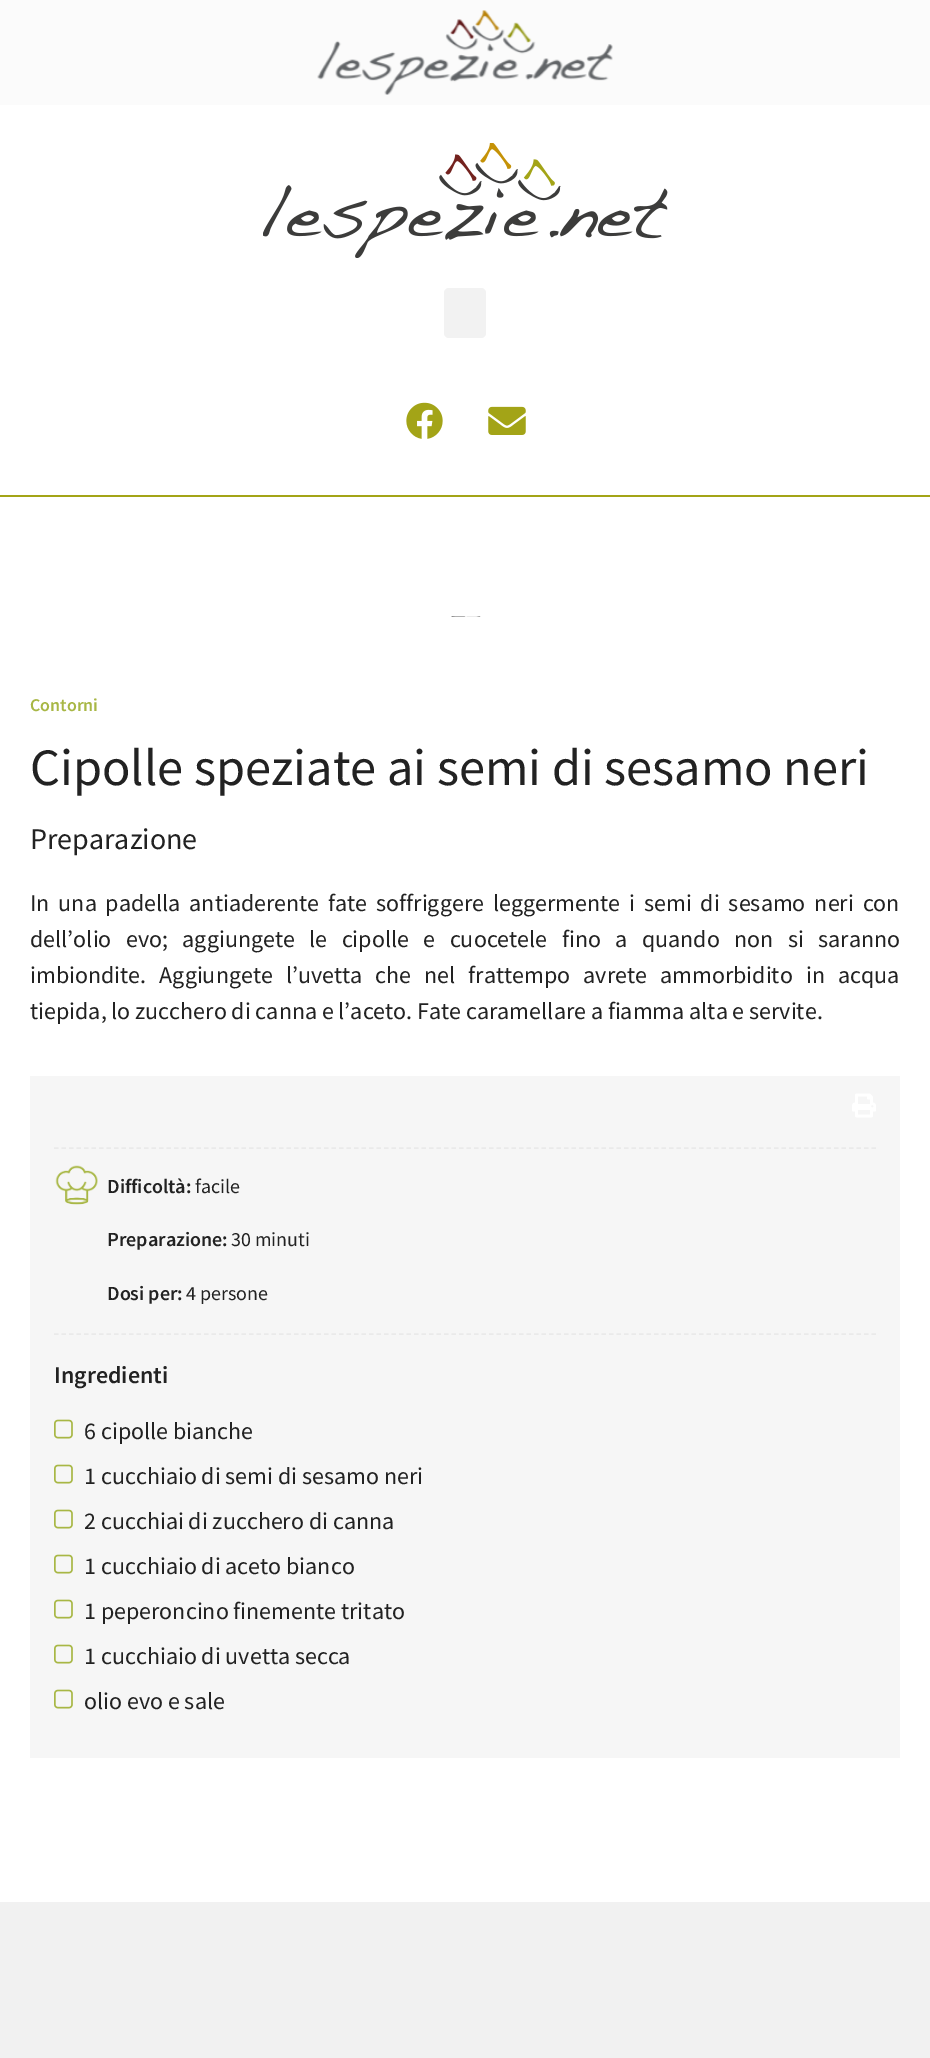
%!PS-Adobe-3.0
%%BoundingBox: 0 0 930 2058
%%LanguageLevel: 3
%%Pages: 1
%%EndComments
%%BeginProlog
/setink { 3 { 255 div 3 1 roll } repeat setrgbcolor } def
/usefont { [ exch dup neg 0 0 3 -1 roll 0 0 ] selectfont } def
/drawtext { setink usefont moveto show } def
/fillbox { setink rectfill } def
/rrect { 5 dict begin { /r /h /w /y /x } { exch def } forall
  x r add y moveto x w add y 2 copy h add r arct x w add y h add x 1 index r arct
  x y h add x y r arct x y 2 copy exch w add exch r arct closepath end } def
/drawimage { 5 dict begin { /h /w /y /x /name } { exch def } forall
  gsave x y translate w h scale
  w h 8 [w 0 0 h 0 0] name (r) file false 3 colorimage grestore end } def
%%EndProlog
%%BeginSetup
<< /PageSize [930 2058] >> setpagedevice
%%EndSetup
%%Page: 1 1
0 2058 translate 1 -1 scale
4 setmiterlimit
0 0 930 2058 241 241 241 fillbox
0 0 930 105 251 251 251 fillbox
(assets/img1.rgb) 317 10 296 85 drawimage
0 105 930 390 255 255 255 fillbox
0 495 930 2 163 164 23 fillbox
(assets/img2.rgb) 263 143 405 115 drawimage
242 242 242 setink
444 288 42 50 5 rrect fill
(assets/img3.rgb) 406 402 37 37 drawimage
(assets/img4.rgb) 488 406 38 29 drawimage
0 497 930 1405 255 255 255 fillbox
(assets/img5.rgb) 451 616 30 1 drawimage
(Contorni) 30 711 /SourceSansPro-SemiBold 18 168 183 69 drawtext
(Cipolle speziate ai semi di sesamo neri) 30 785 /SourceSansPro-Regular 52.5 34 34 34 drawtext
(Preparazione) 30 849 /SourceSansPro-Regular 30 34 34 34 drawtext
/SourceSansPro-Regular 24 usefont
30 911 moveto 4.1 0 32 (In una padella antiaderente fate soffriggere leggermente i semi di sesamo neri con) widthshow
30 947 moveto 9.6 0 32 (dell’olio evo; aggiungete le cipolle e cuocetele fino a quando non si saranno) widthshow
30 983 moveto 8.25 0 32 (imbiondite. Aggiungete l’uvetta che nel frattempo avrete ammorbidito in acqua) widthshow
(tiepida, lo zucchero di canna e l’aceto. Fate caramellare a fiamma alta e servite.) 30 1019 /SourceSansPro-Regular 24 34 34 34 drawtext
30 1076 870 682 246 246 246 fillbox
(assets/img6.rgb) 852 1093 24 25 drawimage
234 234 234 setink
1.5 setlinewidth
[4.5 3] 0 setdash
54 1148 moveto 876 1148 lineto stroke
54 1334 moveto 876 1334 lineto stroke
(assets/img7.rgb) 55 1165 43 40 drawimage
(Difficoltà:) 107 1193 /SourceSansPro-SemiBold 20 34 34 34 drawtext
(facile) 195 1193 /SourceSansPro-Regular 20 34 34 34 drawtext
(Preparazione:) 107 1246 /SourceSansPro-SemiBold 20 34 34 34 drawtext
(30 minuti) 231 1246 /SourceSansPro-Regular 20 34 34 34 drawtext
(Dosi per:) 107 1300 /SourceSansPro-SemiBold 20 34 34 34 drawtext
(4 persone) 186 1300 /SourceSansPro-Regular 20 34 34 34 drawtext
(Ingredienti) 54 1383 /SourceSansPro-SemiBold 24 34 34 34 drawtext
(assets/img8.rgb) 54 1419 19 20 drawimage
(6 cipolle bianche) 84 1439 /SourceSansPro-Regular 24 34 34 34 drawtext
(assets/img8.rgb) 54 1464 19 20 drawimage
(1 cucchiaio di semi di sesamo neri) 84 1484 /SourceSansPro-Regular 24 34 34 34 drawtext
(assets/img8.rgb) 54 1509 19 20 drawimage
(2 cucchiai di zucchero di canna) 84 1529 /SourceSansPro-Regular 24 34 34 34 drawtext
(assets/img8.rgb) 54 1554 19 20 drawimage
(1 cucchiaio di aceto bianco) 84 1574 /SourceSansPro-Regular 24 34 34 34 drawtext
(assets/img8.rgb) 54 1599 19 20 drawimage
(1 peperoncino finemente tritato) 84 1619 /SourceSansPro-Regular 24 34 34 34 drawtext
(assets/img8.rgb) 54 1644 19 20 drawimage
(1 cucchiaio di uvetta secca) 84 1664 /SourceSansPro-Regular 24 34 34 34 drawtext
(assets/img8.rgb) 54 1689 19 20 drawimage
(olio evo e sale) 84 1709 /SourceSansPro-Regular 24 34 34 34 drawtext
showpage
%%EOF
